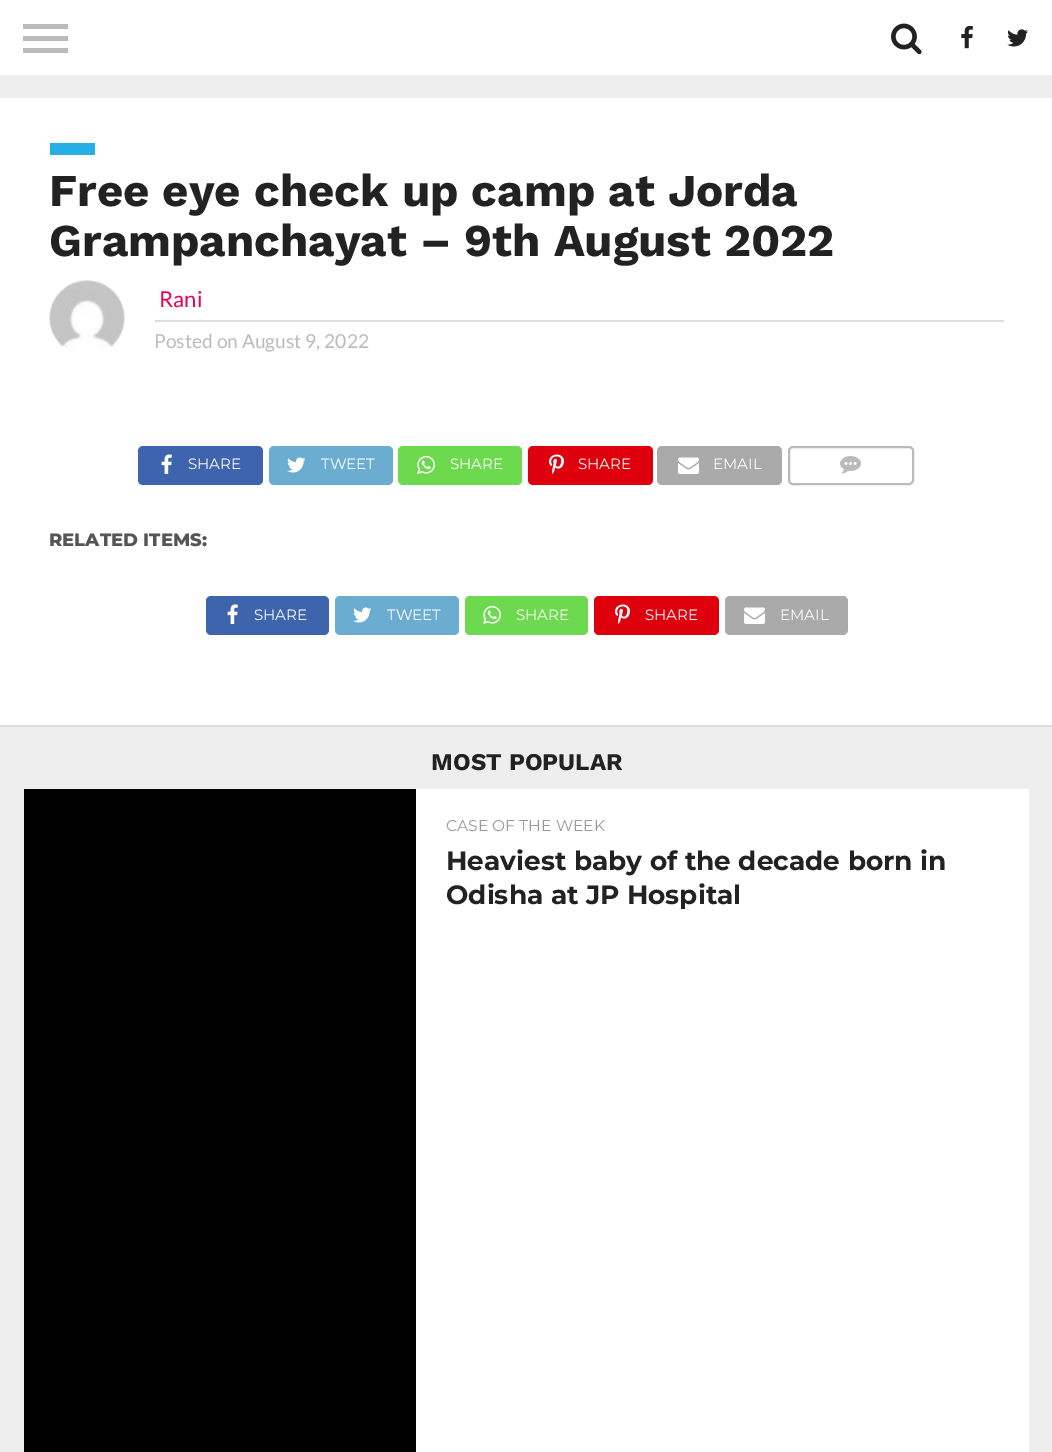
%!PS-Adobe-3.0
%%BoundingBox: 0 0 1052 1452
%%LanguageLevel: 3
%%Pages: 1
%%EndComments
%%BeginProlog
/setink { 3 { 255 div 3 1 roll } repeat setrgbcolor } def
/usefont { [ exch dup neg 0 0 3 -1 roll 0 0 ] selectfont } def
/drawtext { setink usefont moveto show } def
/fillbox { setink rectfill } def
/rrect { 5 dict begin { /r /h /w /y /x } { exch def } forall
  x r add y moveto x w add y 2 copy h add r arct x w add y h add x 1 index r arct
  x y h add x y r arct x y 2 copy exch w add exch r arct closepath end } def
/drawimage { 5 dict begin { /h /w /y /x /name } { exch def } forall
  gsave x y translate w h scale
  w h 8 [w 0 0 h 0 0] name (r) file false 3 colorimage grestore end } def
%%EndProlog
%%BeginSetup
<< /PageSize [1052 1452] >> setpagedevice
%%EndSetup
%%Page: 1 1
0 1452 translate 1 -1 scale
4 setmiterlimit
0 0 1052 1452 238 238 238 fillbox
0 0 1052 75 255 255 255 fillbox
23 24 45 5 187 187 187 fillbox
23 36 45 5 187 187 187 fillbox
23 48 45 5 187 187 187 fillbox
(assets/img1.rgb) 891 23 31 32 drawimage
(assets/img2.rgb) 961 25 12 24 drawimage
(assets/img3.rgb) 1007 29 21 18 drawimage
0 98 1052 627 255 255 255 fillbox
0 725 1052 2 221 221 221 fillbox
50 143 45 12 37 175 229 fillbox
(Free eye check up camp at Jorda) 49 206 /WorkSans-Bold 45.6 34 34 34 drawtext
(Grampanchayat – 9th August 2022) 49 256 /WorkSans-Bold 45.6 34 34 34 drawtext
(assets/img4.rgb) 49 280 76 70 drawimage
155 320 849 2 221 221 221 fillbox
(Rani) 159 307 /Lato-Regular 22 235 2 84 drawtext
(Posted on August 9, 2022) 154 348 /Lato-Regular 19.25 187 187 187 drawtext
62 100 173 setink
138 446 125 39 5 rrect fill
(assets/img5.rgb) 161 454 11 20 drawimage
(SHARE) 188 469 /Montserrat-Regular 15 255 255 255 drawtext
106 173 209 setink
269 446 124 39 5 rrect fill
(assets/img6.rgb) 287 457 19 16 drawimage
(TWEET) 321 469 /Montserrat-Regular 15 255 255 255 drawtext
108 217 78 setink
398 446 124 39 5 rrect fill
(assets/img7.rgb) 417 455 18 19 drawimage
(SHARE) 450 469 /Montserrat-Regular 15 255 255 255 drawtext
222 1 13 setink
528 446 125 39 5 rrect fill
(assets/img8.rgb) 549 454 15 20 drawimage
(SHARE) 578 469 /Montserrat-Regular 15 255 255 255 drawtext
170 170 170 setink
657 446 125 39 5 rrect fill
(assets/img9.rgb) 678 457 21 17 drawimage
(EMAIL) 713 469 /Montserrat-Regular 15 255 255 255 drawtext
187 187 187 setink
2 setlinewidth
789 447 124 37 4 rrect stroke
(assets/img10.rgb) 840 456 21 18 drawimage
(RELATED ITEMS:) 49 546 /Montserrat-ExtraBold 18 85 85 85 drawtext
62 100 173 setink
206 596 123 39 5 rrect fill
(assets/img5.rgb) 227 604 11 20 drawimage
(SHARE) 254 620 /Montserrat-Regular 15 255 255 255 drawtext
106 173 209 setink
335 596 124 39 5 rrect fill
(assets/img6.rgb) 353 607 19 16 drawimage
(TWEET) 387 620 /Montserrat-Regular 15 255 255 255 drawtext
108 217 78 setink
465 596 123 39 5 rrect fill
(assets/img7.rgb) 483 605 18 19 drawimage
(SHARE) 516 620 /Montserrat-Regular 15 255 255 255 drawtext
222 1 13 setink
594 596 125 39 5 rrect fill
(assets/img8.rgb) 615 604 15 20 drawimage
(SHARE) 645 620 /Montserrat-Regular 15 255 255 255 drawtext
170 170 170 setink
725 596 123 39 5 rrect fill
(assets/img9.rgb) 744 607 21 17 drawimage
(EMAIL) 780 620 /Montserrat-Regular 15 255 255 255 drawtext
(MOST POPULAR) 431 770 /WorkSans-Bold 24 34 34 34 drawtext
416 789 613 663 255 255 255 fillbox
24 789 392 663 0 0 0 fillbox
(CASE OF THE WEEK) 446 831 /Montserrat-Regular 15.6 153 153 153 drawtext
(Heaviest baby of the decade born in) 446 870 /Montserrat-Bold 26.4 34 34 34 drawtext
(Odisha at JP Hospital) 446 904 /Montserrat-Bold 26.4 34 34 34 drawtext
showpage
%%EOF
